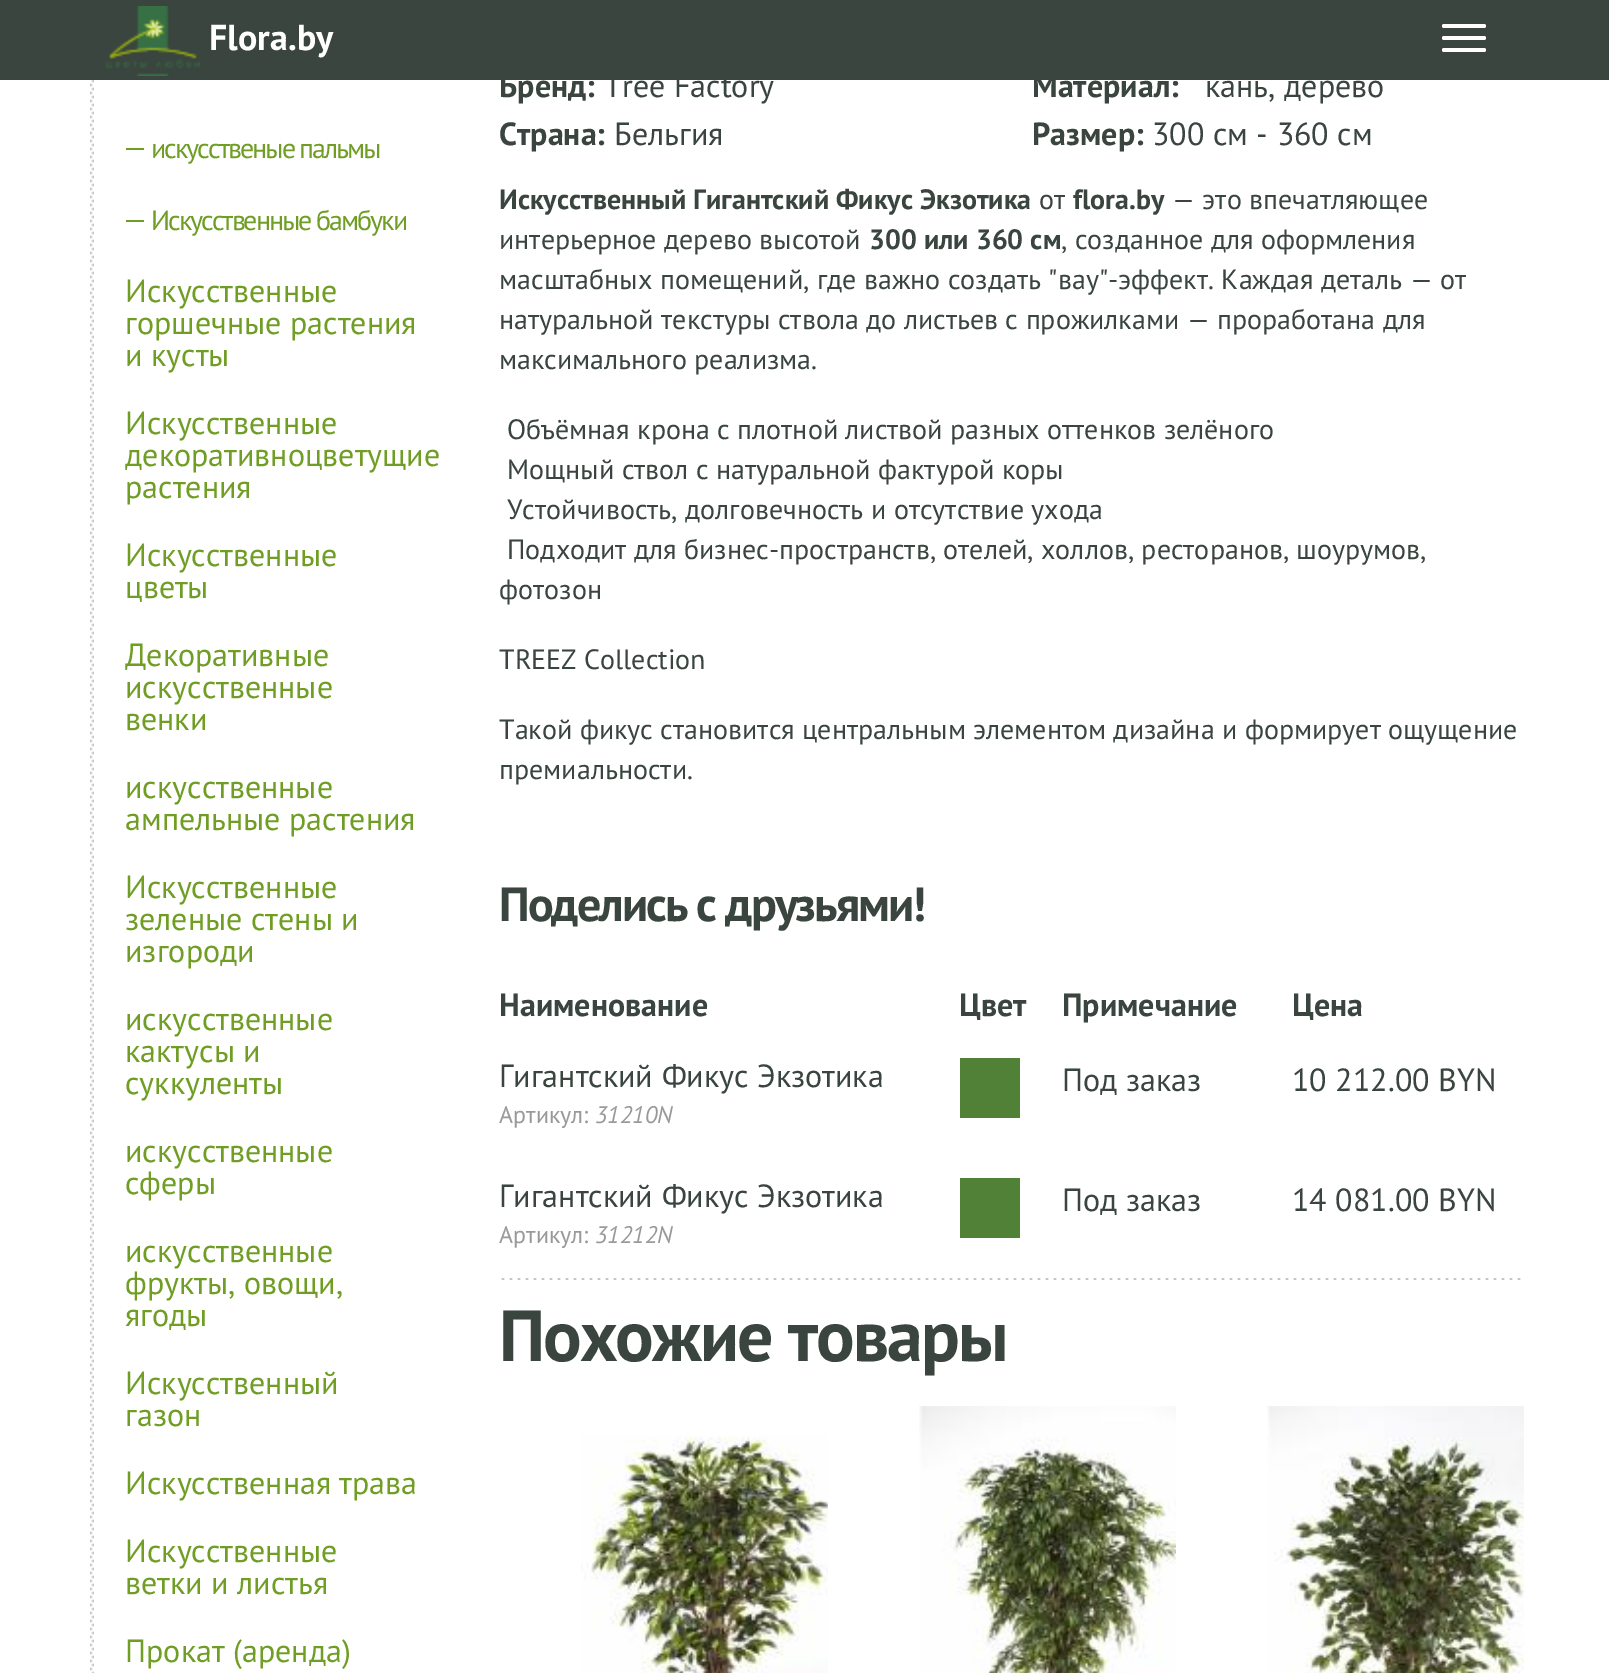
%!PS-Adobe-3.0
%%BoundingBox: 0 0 1609 1673
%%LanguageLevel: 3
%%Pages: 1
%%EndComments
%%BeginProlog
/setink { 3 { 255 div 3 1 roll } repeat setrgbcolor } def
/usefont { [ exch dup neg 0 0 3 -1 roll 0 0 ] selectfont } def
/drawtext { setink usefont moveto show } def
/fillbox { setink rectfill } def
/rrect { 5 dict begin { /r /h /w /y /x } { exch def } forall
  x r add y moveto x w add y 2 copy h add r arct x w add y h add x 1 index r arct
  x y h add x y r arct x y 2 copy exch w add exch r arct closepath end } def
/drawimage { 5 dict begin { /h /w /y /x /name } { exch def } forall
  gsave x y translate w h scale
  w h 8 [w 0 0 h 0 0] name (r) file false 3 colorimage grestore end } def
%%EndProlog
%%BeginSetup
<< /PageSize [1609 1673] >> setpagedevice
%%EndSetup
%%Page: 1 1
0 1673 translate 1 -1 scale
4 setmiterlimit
0 0 1609 1673 255 255 255 fillbox
0 0 1609 80 58 69 63 fillbox
(assets/img1.rgb) 105 6 95 70 drawimage
(Flora.by) 209 50 /PTSans-Bold 36 255 255 255 drawtext
1442 24 44 4 2 rrect fill
1442 36 44 4 2 rrect fill
1442 48 44 4 2 rrect fill
(assets/img2.rgb) 90 80 4 1593 drawimage
126 148 18 2 112 158 36 fillbox
/PTSans-Regular 28 usefont
151 158 moveto -2 0 (искусственые пальмы) ashow
126 220 18 2 112 158 36 fillbox
151 230 moveto -2 0 (Искусственные бамбуки) ashow
(Искусственные) 125 302 /PTSans-Regular 32 112 158 36 drawtext
(горшечные растения) 125 334 /PTSans-Regular 32 112 158 36 drawtext
(и кусты) 125 366 /PTSans-Regular 32 112 158 36 drawtext
(Искусственные) 125 434 /PTSans-Regular 32 112 158 36 drawtext
(декоративноцветущие) 125 466 /PTSans-Regular 32 112 158 36 drawtext
(растения) 125 498 /PTSans-Regular 32 112 158 36 drawtext
(Искусственные) 125 566 /PTSans-Regular 32 112 158 36 drawtext
(цветы) 125 598 /PTSans-Regular 32 112 158 36 drawtext
(Декоративные) 125 666 /PTSans-Regular 32 112 158 36 drawtext
(искусственные) 125 698 /PTSans-Regular 32 112 158 36 drawtext
(венки) 125 730 /PTSans-Regular 32 112 158 36 drawtext
(искусственные) 125 798 /PTSans-Regular 32 112 158 36 drawtext
(ампельные растения) 125 830 /PTSans-Regular 32 112 158 36 drawtext
(Искусственные) 125 898 /PTSans-Regular 32 112 158 36 drawtext
(зеленые стены и) 125 930 /PTSans-Regular 32 112 158 36 drawtext
(изгороди) 125 962 /PTSans-Regular 32 112 158 36 drawtext
(искусственные) 125 1030 /PTSans-Regular 32 112 158 36 drawtext
(кактусы и) 125 1062 /PTSans-Regular 32 112 158 36 drawtext
(суккуленты) 125 1094 /PTSans-Regular 32 112 158 36 drawtext
(искусственные) 125 1162 /PTSans-Regular 32 112 158 36 drawtext
(сферы) 125 1194 /PTSans-Regular 32 112 158 36 drawtext
(искусственные) 125 1262 /PTSans-Regular 32 112 158 36 drawtext
(фрукты, овощи,) 125 1294 /PTSans-Regular 32 112 158 36 drawtext
(ягоды) 125 1326 /PTSans-Regular 32 112 158 36 drawtext
(Искусственный) 125 1394 /PTSans-Regular 32 112 158 36 drawtext
(газон) 125 1426 /PTSans-Regular 32 112 158 36 drawtext
(Искусственная трава) 125 1494 /PTSans-Regular 32 112 158 36 drawtext
(Искусственные) 125 1562 /PTSans-Regular 32 112 158 36 drawtext
(ветки и листья) 125 1594 /PTSans-Regular 32 112 158 36 drawtext
(Прокат \(аренда\)) 125 1662 /PTSans-Regular 32 112 158 36 drawtext
(Бренд:) 499 97 /PTSans-Bold 32 58 69 63 drawtext
(Tree Factory) 604 97 /PTSans-Regular 32 58 69 63 drawtext
(Страна:) 499 145 /PTSans-Bold 32 58 69 63 drawtext
(Бельгия) 614 145 /PTSans-Regular 32 58 69 63 drawtext
(Материал:) 1032 97 /PTSans-Bold 32 58 69 63 drawtext
(кань, дерево) 1205 97 /PTSans-Regular 32 58 69 63 drawtext
(Размер:) 1032 145 /PTSans-Bold 32 58 69 63 drawtext
(300 см - 360 см) 1152 145 /PTSans-Regular 32 58 69 63 drawtext
(Искусственный Гигантский Фикус Экзотика) 499 209 /PTSans-Bold 28 58 69 63 drawtext
(от) 1039 209 /PTSans-Regular 28 58 69 63 drawtext
(flora.by) 1073 209 /PTSans-Bold 28 58 69 63 drawtext
(— это впечатляющее) 1172 209 /PTSans-Regular 28 58 69 63 drawtext
(интерьерное дерево высотой) 499 249 /PTSans-Regular 28 58 69 63 drawtext
(300 или 360 см) 869 249 /PTSans-Bold 28 58 69 63 drawtext
(, созданное для оформления) 1061 249 /PTSans-Regular 28 58 69 63 drawtext
(масштабных помещений, где важно создать "вау"-эффект. Каждая деталь — от) 499 289 /PTSans-Regular 28 58 69 63 drawtext
(натуральной текстуры ствола до листьев с прожилками — проработана для) 499 329 /PTSans-Regular 28 58 69 63 drawtext
(максимального реализма.) 499 369 /PTSans-Regular 28 58 69 63 drawtext
(Объёмная крона с плотной листвой разных оттенков зелёного) 507 439 /PTSans-Regular 28 58 69 63 drawtext
(Мощный ствол с натуральной фактурой коры) 507 479 /PTSans-Regular 28 58 69 63 drawtext
(Устойчивость, долговечность и отсутствие ухода) 507 519 /PTSans-Regular 28 58 69 63 drawtext
(Подходит для бизнес-пространств, отелей, холлов, ресторанов, шоурумов,) 507 559 /PTSans-Regular 28 58 69 63 drawtext
(фотозон) 499 599 /PTSans-Regular 28 58 69 63 drawtext
(TREEZ Collection) 499 669 /PTSans-Regular 28 58 69 63 drawtext
(Такой фикус становится центральным элементом дизайна и формирует ощущение) 499 739 /PTSans-Regular 28 58 69 63 drawtext
(премиальности.) 499 779 /PTSans-Regular 28 58 69 63 drawtext
/PTSans-Bold 48 usefont
499 921 moveto -2 0 (Поделись с друзьями!) ashow
(Наименование) 499 1016 /PTSans-Bold 32 58 69 63 drawtext
(Цвет) 959 1016 /PTSans-Bold 32 58 69 63 drawtext
(Примечание) 1062 1016 /PTSans-Bold 32 58 69 63 drawtext
(Цена) 1292 1016 /PTSans-Bold 32 58 69 63 drawtext
(Гигантский Фикус Экзотика) 499 1087 /PTSans-Regular 32 58 69 63 drawtext
(Артикул:) 499 1123 /PTSans-Regular 24 153 153 153 drawtext
(31210N) 595 1123 /PTSans-Italic 24 153 153 153 drawtext
960 1058 60 60 81 128 55 fillbox
(Под заказ) 1062 1091 /PTSans-Regular 32 58 69 63 drawtext
(10 212.00 BYN) 1292 1091 /PTSans-Regular 32 58 69 63 drawtext
(Гигантский Фикус Экзотика) 499 1207 /PTSans-Regular 32 58 69 63 drawtext
(Артикул:) 499 1243 /PTSans-Regular 24 153 153 153 drawtext
(31212N) 595 1243 /PTSans-Italic 24 153 153 153 drawtext
960 1178 60 60 81 128 55 fillbox
(Под заказ) 1062 1211 /PTSans-Regular 32 58 69 63 drawtext
(14 081.00 BYN) 1292 1211 /PTSans-Regular 32 58 69 63 drawtext
(assets/img3.rgb) 501 1278 1020 2 drawimage
/PTSans-Bold 72 usefont
499 1361 moveto -2 0 (Похожие товары) ashow
(assets/img4.rgb) 581 1435 247 238 drawimage
(assets/img5.rgb) 919 1406 257 267 drawimage
(assets/img6.rgb) 1267 1406 257 267 drawimage
showpage
%%EOF
